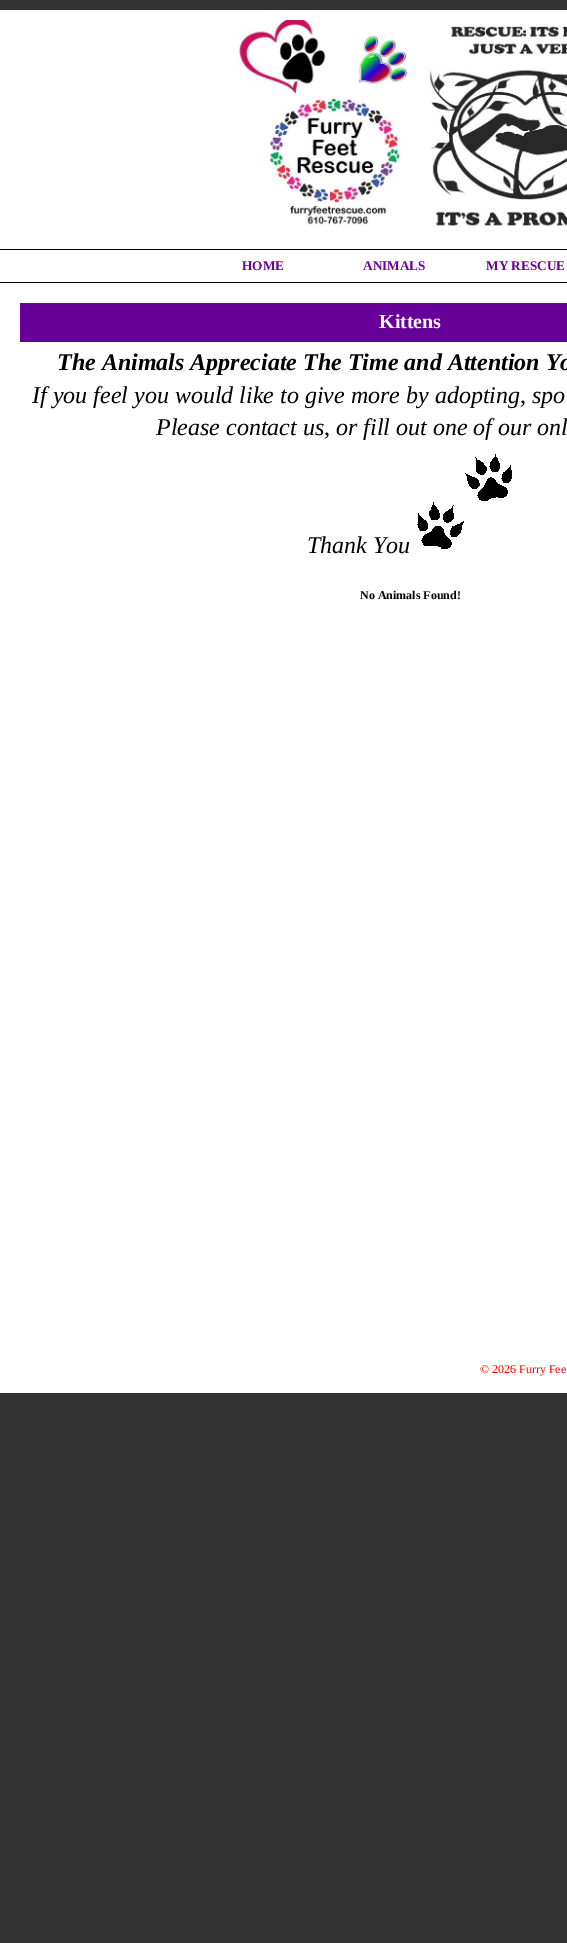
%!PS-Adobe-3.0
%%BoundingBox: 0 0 567 1943
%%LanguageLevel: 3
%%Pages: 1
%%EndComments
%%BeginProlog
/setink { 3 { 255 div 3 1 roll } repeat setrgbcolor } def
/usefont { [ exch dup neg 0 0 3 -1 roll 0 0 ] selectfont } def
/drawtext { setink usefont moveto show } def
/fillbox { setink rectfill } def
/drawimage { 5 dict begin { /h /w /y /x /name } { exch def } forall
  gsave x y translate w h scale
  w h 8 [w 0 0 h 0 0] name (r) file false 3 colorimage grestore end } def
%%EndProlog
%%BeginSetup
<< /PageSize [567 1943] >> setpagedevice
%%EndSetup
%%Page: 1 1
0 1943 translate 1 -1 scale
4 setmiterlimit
0 0 567 1943 51 51 51 fillbox
0 10 567 1383 255 255 255 fillbox
(assets/img1.rgb) 237 20 330 206 drawimage
0 249 567 1 0 0 0 fillbox
0 282 567 1 0 0 0 fillbox
(HOME) 242 270 /LiberationSerif-Bold 13.25 103 0 153 drawtext
(ANIMALS) 363 270 /LiberationSerif-Bold 13.25 103 0 153 drawtext
(MY RESCUE) 486 270 /LiberationSerif-Bold 13.25 103 0 153 drawtext
20 303 547 39 103 0 153 fillbox
(Kittens) 379 328 /LiberationSerif-Bold 20 255 255 255 drawtext
(The Animals Appreciate The Time and Attention Yo) 57 370 /LiberationSerif-BoldItalic 24 0 0 0 drawtext
(If you feel you would like to give more by adopting, spo) 32 403 /LiberationSerif-Italic 24 0 0 0 drawtext
(Please contact us, or fill out one of our onl) 156 435 /LiberationSerif-Italic 24 0 0 0 drawtext
(Thank You) 307 553 /LiberationSerif-Italic 24 0 0 0 drawtext
(assets/img2.rgb) 417 454 95 95 drawimage
(No Animals Found!) 360 599 /LiberationSerif-Bold 12 0 0 0 drawtext
(© 2026 Furry Fee) 480 1373 /LiberationSerif-Regular 12 255 0 0 drawtext
showpage
%%EOF
